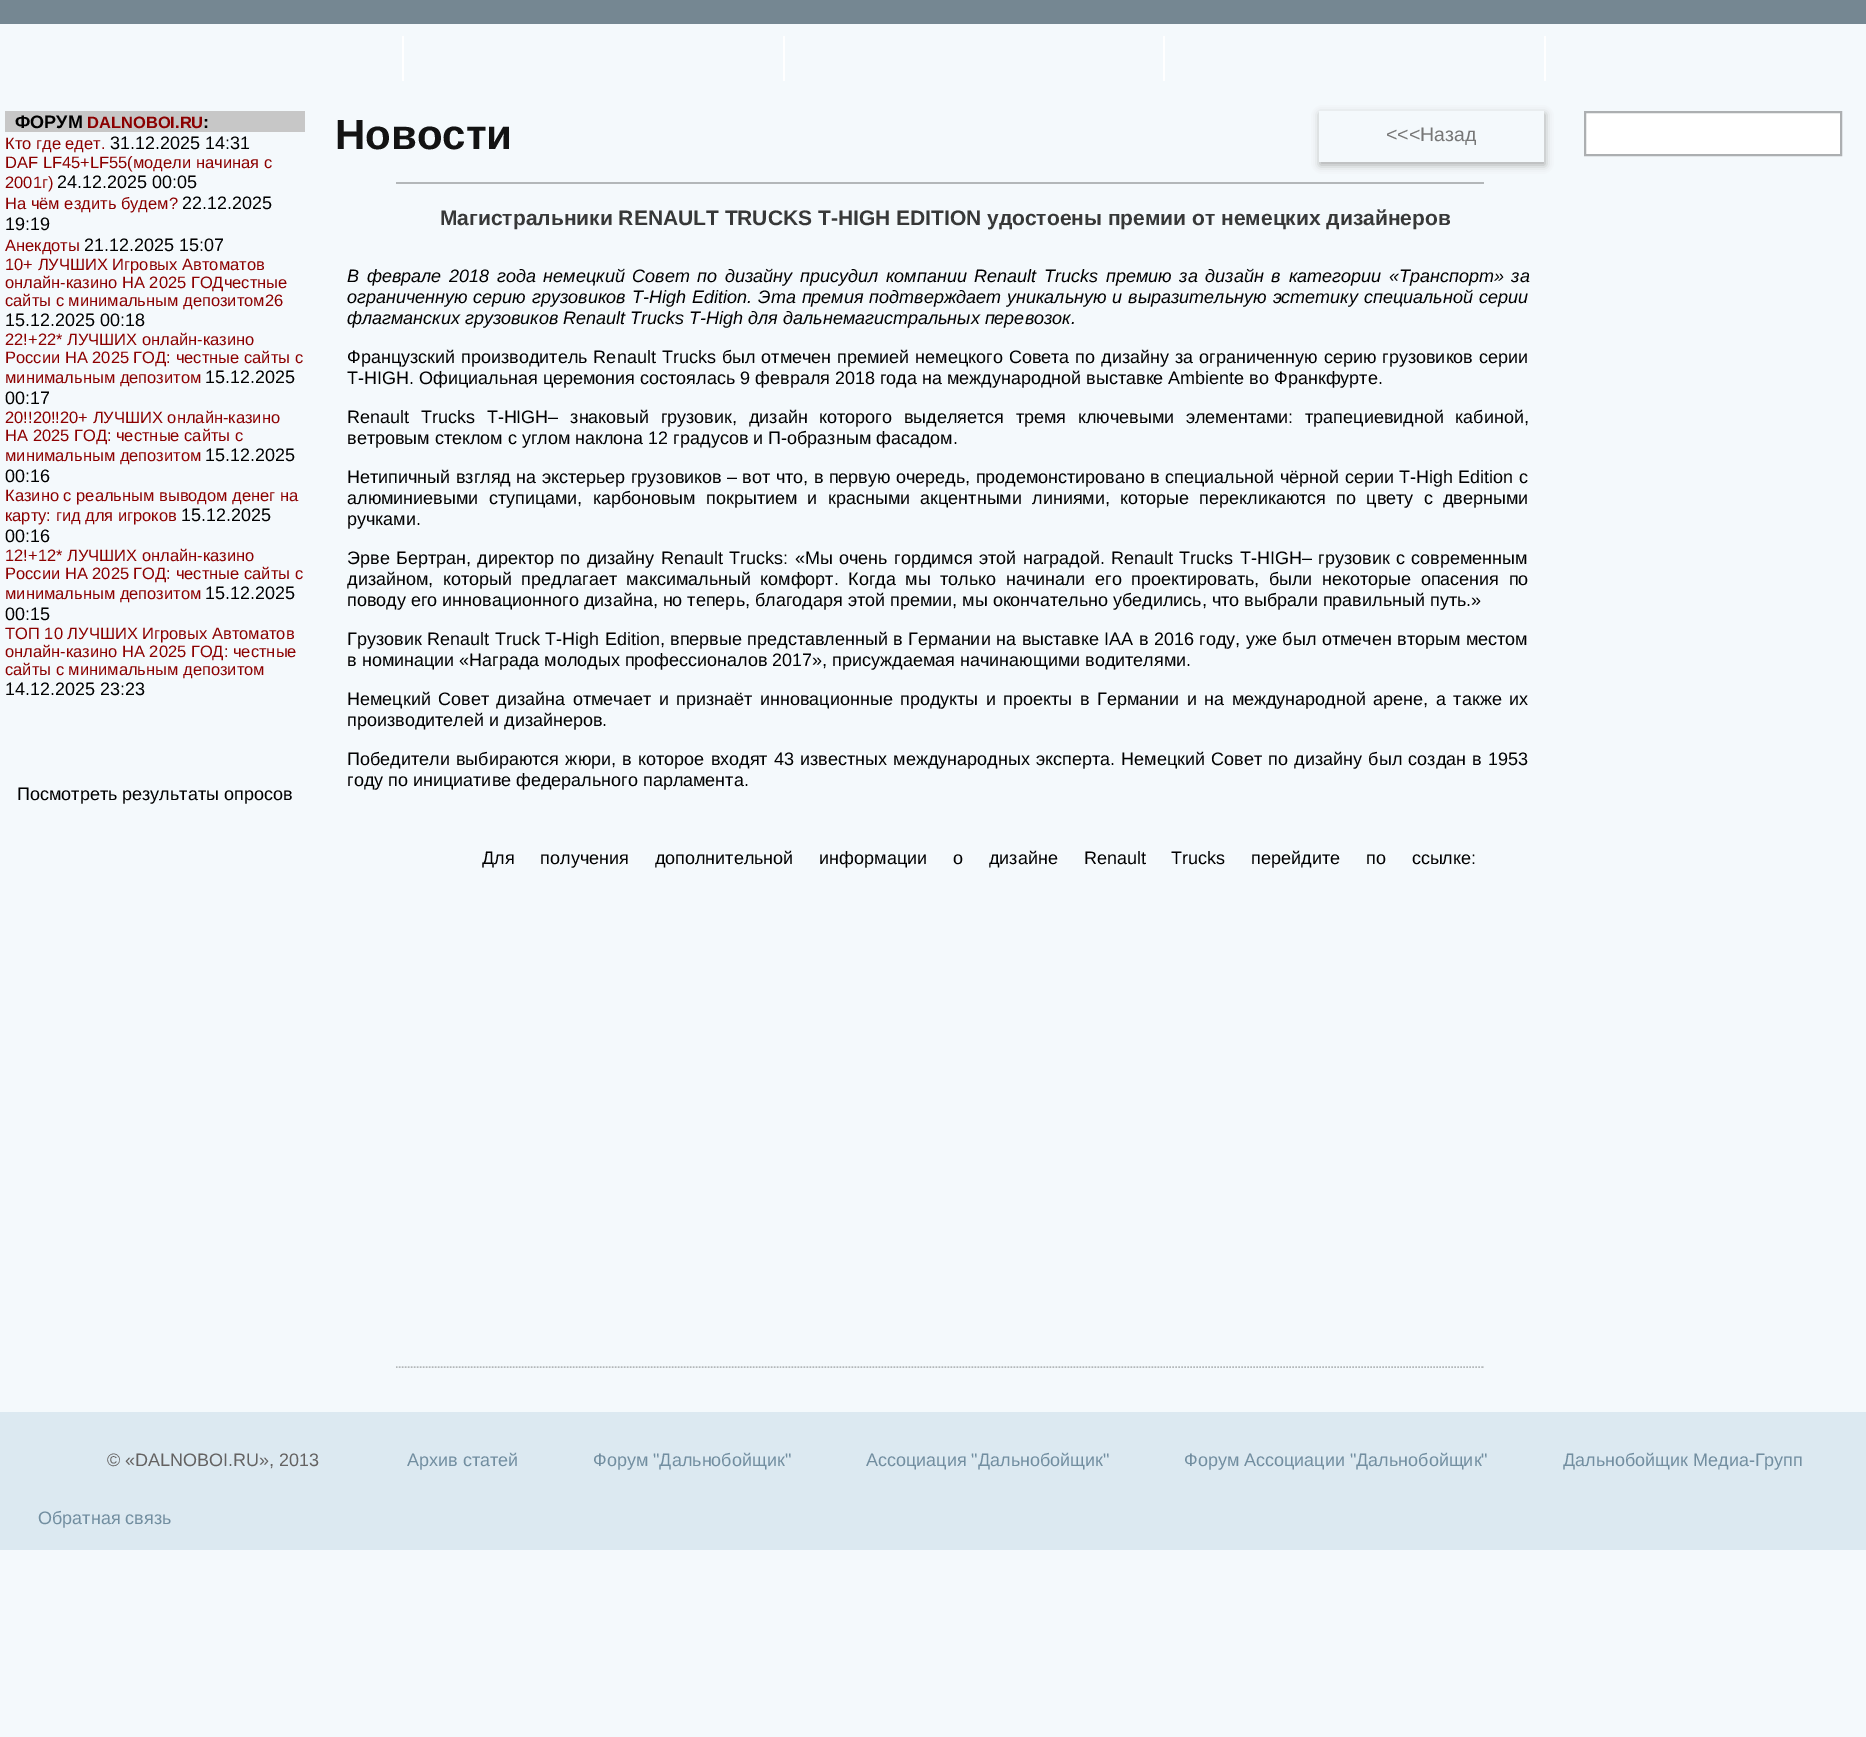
%!PS-Adobe-3.0
%%BoundingBox: 0 0 1866 1737
%%LanguageLevel: 3
%%Pages: 1
%%EndComments
%%BeginProlog
/setink { 3 { 255 div 3 1 roll } repeat setrgbcolor } def
/usefont { [ exch dup neg 0 0 3 -1 roll 0 0 ] selectfont } def
/drawtext { setink usefont moveto show } def
/fillbox { setink rectfill } def
/setalpha { dup .setfillconstantalpha .setstrokeconstantalpha } def
/rrect { 5 dict begin { /r /h /w /y /x } { exch def } forall
  x r add y moveto x w add y 2 copy h add r arct x w add y h add x 1 index r arct
  x y h add x y r arct x y 2 copy exch w add exch r arct closepath end } def
/softshadow { 12 dict begin { /a /b /q /h /w /y /x } { exch def } forall gsave /was 0 def
  9 -2 -9 { dup b mul 4 div /e exch def 1 sub .425 mul 2.718 exch exp 1 add a .99 .min exch div /now exch def
    1 1 now sub 1 was sub div sub setalpha /was now def
    w h .min e 2 mul add 0 gt { x e sub y e sub w e 2 mul add h e 2 mul add
      q e add b .6 mul add w h .min 2 div e add .min 0 .max rrect fill } if } for grestore end } def
%%EndProlog
%%BeginSetup
<< /PageSize [1866 1737] /PageUsesTransparency true >> setpagedevice
%%EndSetup
%%Page: 1 1
0 .pushpdf14devicefilter
0 1737 translate 1 -1 scale
4 setmiterlimit
0 0 1866 1737 244 249 252 fillbox
0 0 1866 24 117 135 146 fillbox
402 36 2 45 255 255 255 fillbox
783 36 2 45 255 255 255 fillbox
1163 36 2 45 255 255 255 fillbox
1544 36 2 45 255 255 255 fillbox
5 111 300 21 199 199 199 fillbox
(ФОРУМ) 15 128 /LiberationSans-Bold 18 0 0 0 drawtext
(DALNOBOI.RU) 87 128 /LiberationSans-Bold 16.5 139 0 0 drawtext
(:) 203 128 /LiberationSans-Bold 18 0 0 0 drawtext
(Кто где едет.) 5 149 /LiberationSans-Regular 16.5 139 0 0 drawtext
(31.12.2025 14:31) 110 149 /LiberationSans-Regular 18 0 0 0 drawtext
(DAF LF45+LF55\(модели начиная с) 5 168 /LiberationSans-Regular 16.5 139 0 0 drawtext
(2001г\)) 5 188 /LiberationSans-Regular 16.5 139 0 0 drawtext
(24.12.2025 00:05) 57 188 /LiberationSans-Regular 18 0 0 0 drawtext
(На чём ездить будем?) 5 209 /LiberationSans-Regular 16.5 139 0 0 drawtext
(22.12.2025) 182 209 /LiberationSans-Regular 18 0 0 0 drawtext
(19:19) 5 230 /LiberationSans-Regular 18 0 0 0 drawtext
(Анекдоты) 5 251 /LiberationSans-Regular 16.5 139 0 0 drawtext
(21.12.2025 15:07) 84 251 /LiberationSans-Regular 18 0 0 0 drawtext
(10+ ЛУЧШИХ Игровых Aвтoмaтов) 5 270 /LiberationSans-Regular 16.5 139 0 0 drawtext
(онлайн-кaзинo НА 2025 ГОДчecтные) 5 288 /LiberationSans-Regular 16.5 139 0 0 drawtext
(сайты с минимальным депозитом26) 5 306 /LiberationSans-Regular 16.5 139 0 0 drawtext
(15.12.2025 00:18) 5 326 /LiberationSans-Regular 18 0 0 0 drawtext
(22!+22* ЛУЧШИХ онлайн-кaзинo) 5 345 /LiberationSans-Regular 16.5 139 0 0 drawtext
(России НА 2025 ГОД: чecтные сайты с) 5 363 /LiberationSans-Regular 16.5 139 0 0 drawtext
(минимальным депозитом) 5 383 /LiberationSans-Regular 16.5 139 0 0 drawtext
(15.12.2025) 205 383 /LiberationSans-Regular 18 0 0 0 drawtext
(00:17) 5 404 /LiberationSans-Regular 18 0 0 0 drawtext
(20!!20!!20+ ЛУЧШИХ онлайн-кaзинo) 5 423 /LiberationSans-Regular 16.5 139 0 0 drawtext
(НА 2025 ГОД: чecтные сайты с) 5 441 /LiberationSans-Regular 16.5 139 0 0 drawtext
(минимальным депозитом) 5 461 /LiberationSans-Regular 16.5 139 0 0 drawtext
(15.12.2025) 205 461 /LiberationSans-Regular 18 0 0 0 drawtext
(00:16) 5 482 /LiberationSans-Regular 18 0 0 0 drawtext
(Казино с реальным выводом денег на) 5 501 /LiberationSans-Regular 16.5 139 0 0 drawtext
(карту: гид для игроков) 5 521 /LiberationSans-Regular 16.5 139 0 0 drawtext
(15.12.2025) 181 521 /LiberationSans-Regular 18 0 0 0 drawtext
(00:16) 5 542 /LiberationSans-Regular 18 0 0 0 drawtext
(12!+12* ЛУЧШИХ онлайн-кaзинo) 5 561 /LiberationSans-Regular 16.5 139 0 0 drawtext
(России НА 2025 ГОД: чecтные сайты с) 5 579 /LiberationSans-Regular 16.5 139 0 0 drawtext
(минимальным депозитом) 5 599 /LiberationSans-Regular 16.5 139 0 0 drawtext
(15.12.2025) 205 599 /LiberationSans-Regular 18 0 0 0 drawtext
(00:15) 5 620 /LiberationSans-Regular 18 0 0 0 drawtext
(ТОП 10 ЛУЧШИХ Игровых Aвтoмaтов) 5 639 /LiberationSans-Regular 16.5 139 0 0 drawtext
(онлайн-кaзинo НА 2025 ГОД: чecтные) 5 657 /LiberationSans-Regular 16.5 139 0 0 drawtext
(сайты с минимальным депозитом) 5 675 /LiberationSans-Regular 16.5 139 0 0 drawtext
(14.12.2025 23:23) 5 695 /LiberationSans-Regular 18 0 0 0 drawtext
(Посмотреть результаты опросов) 17 800 /LiberationSans-Regular 18 0 0 0 drawtext
(Новости) 335 149 /LiberationSans-Bold 42 19 19 19 drawtext
gsave
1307 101 moveto 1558 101 lineto 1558 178 lineto 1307 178 lineto closepath 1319 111 moveto 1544 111 lineto 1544 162 lineto 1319 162 lineto closepath eoclip newpath
169 169 169 setink
1320 114 225 51 0 4 1 softshadow
grestore
(<<<Назад) 1386 141 /LiberationSans-Regular 19.5 119 119 119 drawtext
396 182 1088 2 179 183 185 fillbox
(Магистральники RENAULT TRUCKS T-HIGH EDITION удостоены премии от немецких дизайнеров) 440 225 /LiberationSans-Bold 21 55 56 56 drawtext
/LiberationSans-Italic 18 usefont
0 0 0 setink
347 282 moveto 2.75 0 32 (В феврале 2018 года немецкий Совет по дизайну присудил компании Renault Trucks премию за дизайн в категории «Транспорт» за) widthshow
347 303 moveto 1 0 32 (ограниченную серию грузовиков) widthshow
(T) 632 303 /LiberationSans-Italic 18 0 0 0 drawtext
643 303 moveto 1 0 32 (-High Edition. Эта премия подтверждает уникальную и выразительную эстетику специальной серии) widthshow
(флагманских грузовиков Renault Trucks T-High для дальнемагистральных перевозок.) 347 324 /LiberationSans-Italic 18 0 0 0 drawtext
/LiberationSans-Regular 18 usefont
347 363 moveto 1 0 32 (Французский производитель Renault Trucks был отмечен премией немецкого Совета по дизайну за ограниченную серию грузовиков серии) widthshow
(T-HIGH. Официальная церемония состоялась 9 февраля 2018 года на международной выставке Ambiente во Франкфурте.) 347 384 /LiberationSans-Regular 18 0 0 0 drawtext
347 423 moveto 6.75 0 32 (Renault Trucks T-HIGH– знаковый грузовик, дизайн которого выделяется тремя ключевыми элементами: трапециевидной кабиной,) widthshow
(ветровым стеклом с углом наклона 12 градусов и П-образным фасадом.) 347 444 /LiberationSans-Regular 18 0 0 0 drawtext
347 483 moveto 0.4 0 32 (Нетипичный взгляд на экстерьер грузовиков – вот что, в первую очередь, продемонстировано в специальной чёрной серии T-High Edition с) widthshow
347 504 moveto 5.25 0 32 (алюминиевыми ступицами, карбоновым покрытием и красными акцентными линиями, которые перекликаются по цвету с дверными) widthshow
(ручками.) 347 525 /LiberationSans-Regular 18 0 0 0 drawtext
347 564 moveto 1.4 0 32 (Эрве Бертран, директор по дизайну Renault Trucks: «Мы очень гордимся этой наградой. Renault Trucks T-HIGH– грузовик с современным) widthshow
347 585 moveto 4.5 0 32 (дизайном, который предлагает максимальный комфорт. Когда мы только начинали его проектировать, были некоторые опасения по) widthshow
(поводу его инновационного дизайна, но теперь, благодаря этой премии, мы окончательно убедились, что выбрали правильный путь.») 347 606 /LiberationSans-Regular 18 0 0 0 drawtext
347 645 moveto 0.5 0 32 (Грузовик Renault Truck T-High Edition, впервые представленный в Германии на выставке IAA в 2016 году, уже был отмечен вторым местом) widthshow
(в номинации «Награда молодых профессионалов 2017», присуждаемая начинающими водителями.) 347 666 /LiberationSans-Regular 18 0 0 0 drawtext
347 705 moveto 2.5 0 32 (Немецкий Совет дизайна отмечает и признаёт инновационные продукты и проекты в Германии и на международной арене, а также их) widthshow
(производителей и дизайнеров.) 347 726 /LiberationSans-Regular 18 0 0 0 drawtext
347 765 moveto 1.25 0 32 (Победители выбираются жюри, в которое входят 43 известных международных эксперта. Немецкий Совет по дизайну был создан в 1953) widthshow
(году по инициативе федерального парламента.) 347 786 /LiberationSans-Regular 18 0 0 0 drawtext
482 864 moveto 20.9 0 32 (Для получения дополнительной информации о дизайне Renault Trucks перейдите по ссылке:) widthshow
179 183 185 setink
1.5 setlinewidth
[1.5 1.5] 0 setdash
396 1367 moveto 1483.5 1367 lineto stroke
255 255 255 setink
1585 112 moveto 1841 112 lineto 1841 155 lineto 1585 155 lineto closepath gsave fill grestore
172 175 177 setink
2 setlinewidth
[] 0 setdash
stroke
0 1412 1866 138 220 233 241 fillbox
(© «DALNOBOI.RU», 2013) 107 1466 /LiberationSans-Regular 18 100 98 98 drawtext
(Архив статей) 407 1466 /LiberationSans-Regular 18 114 142 160 drawtext
(Форум "Дальнобойщик") 593 1466 /LiberationSans-Regular 18 114 142 160 drawtext
(Ассоциация "Дальнобойщик") 866 1466 /LiberationSans-Regular 18 114 142 160 drawtext
(Форум Ассоциации "Дальнобойщик") 1184 1466 /LiberationSans-Regular 18 114 142 160 drawtext
(Дальнобойщик Медиа-Групп) 1563 1466 /LiberationSans-Regular 18 114 142 160 drawtext
(Обратная связь) 38 1524 /LiberationSans-Regular 18 114 142 160 drawtext
.poppdf14devicefilter showpage
%%EOF
